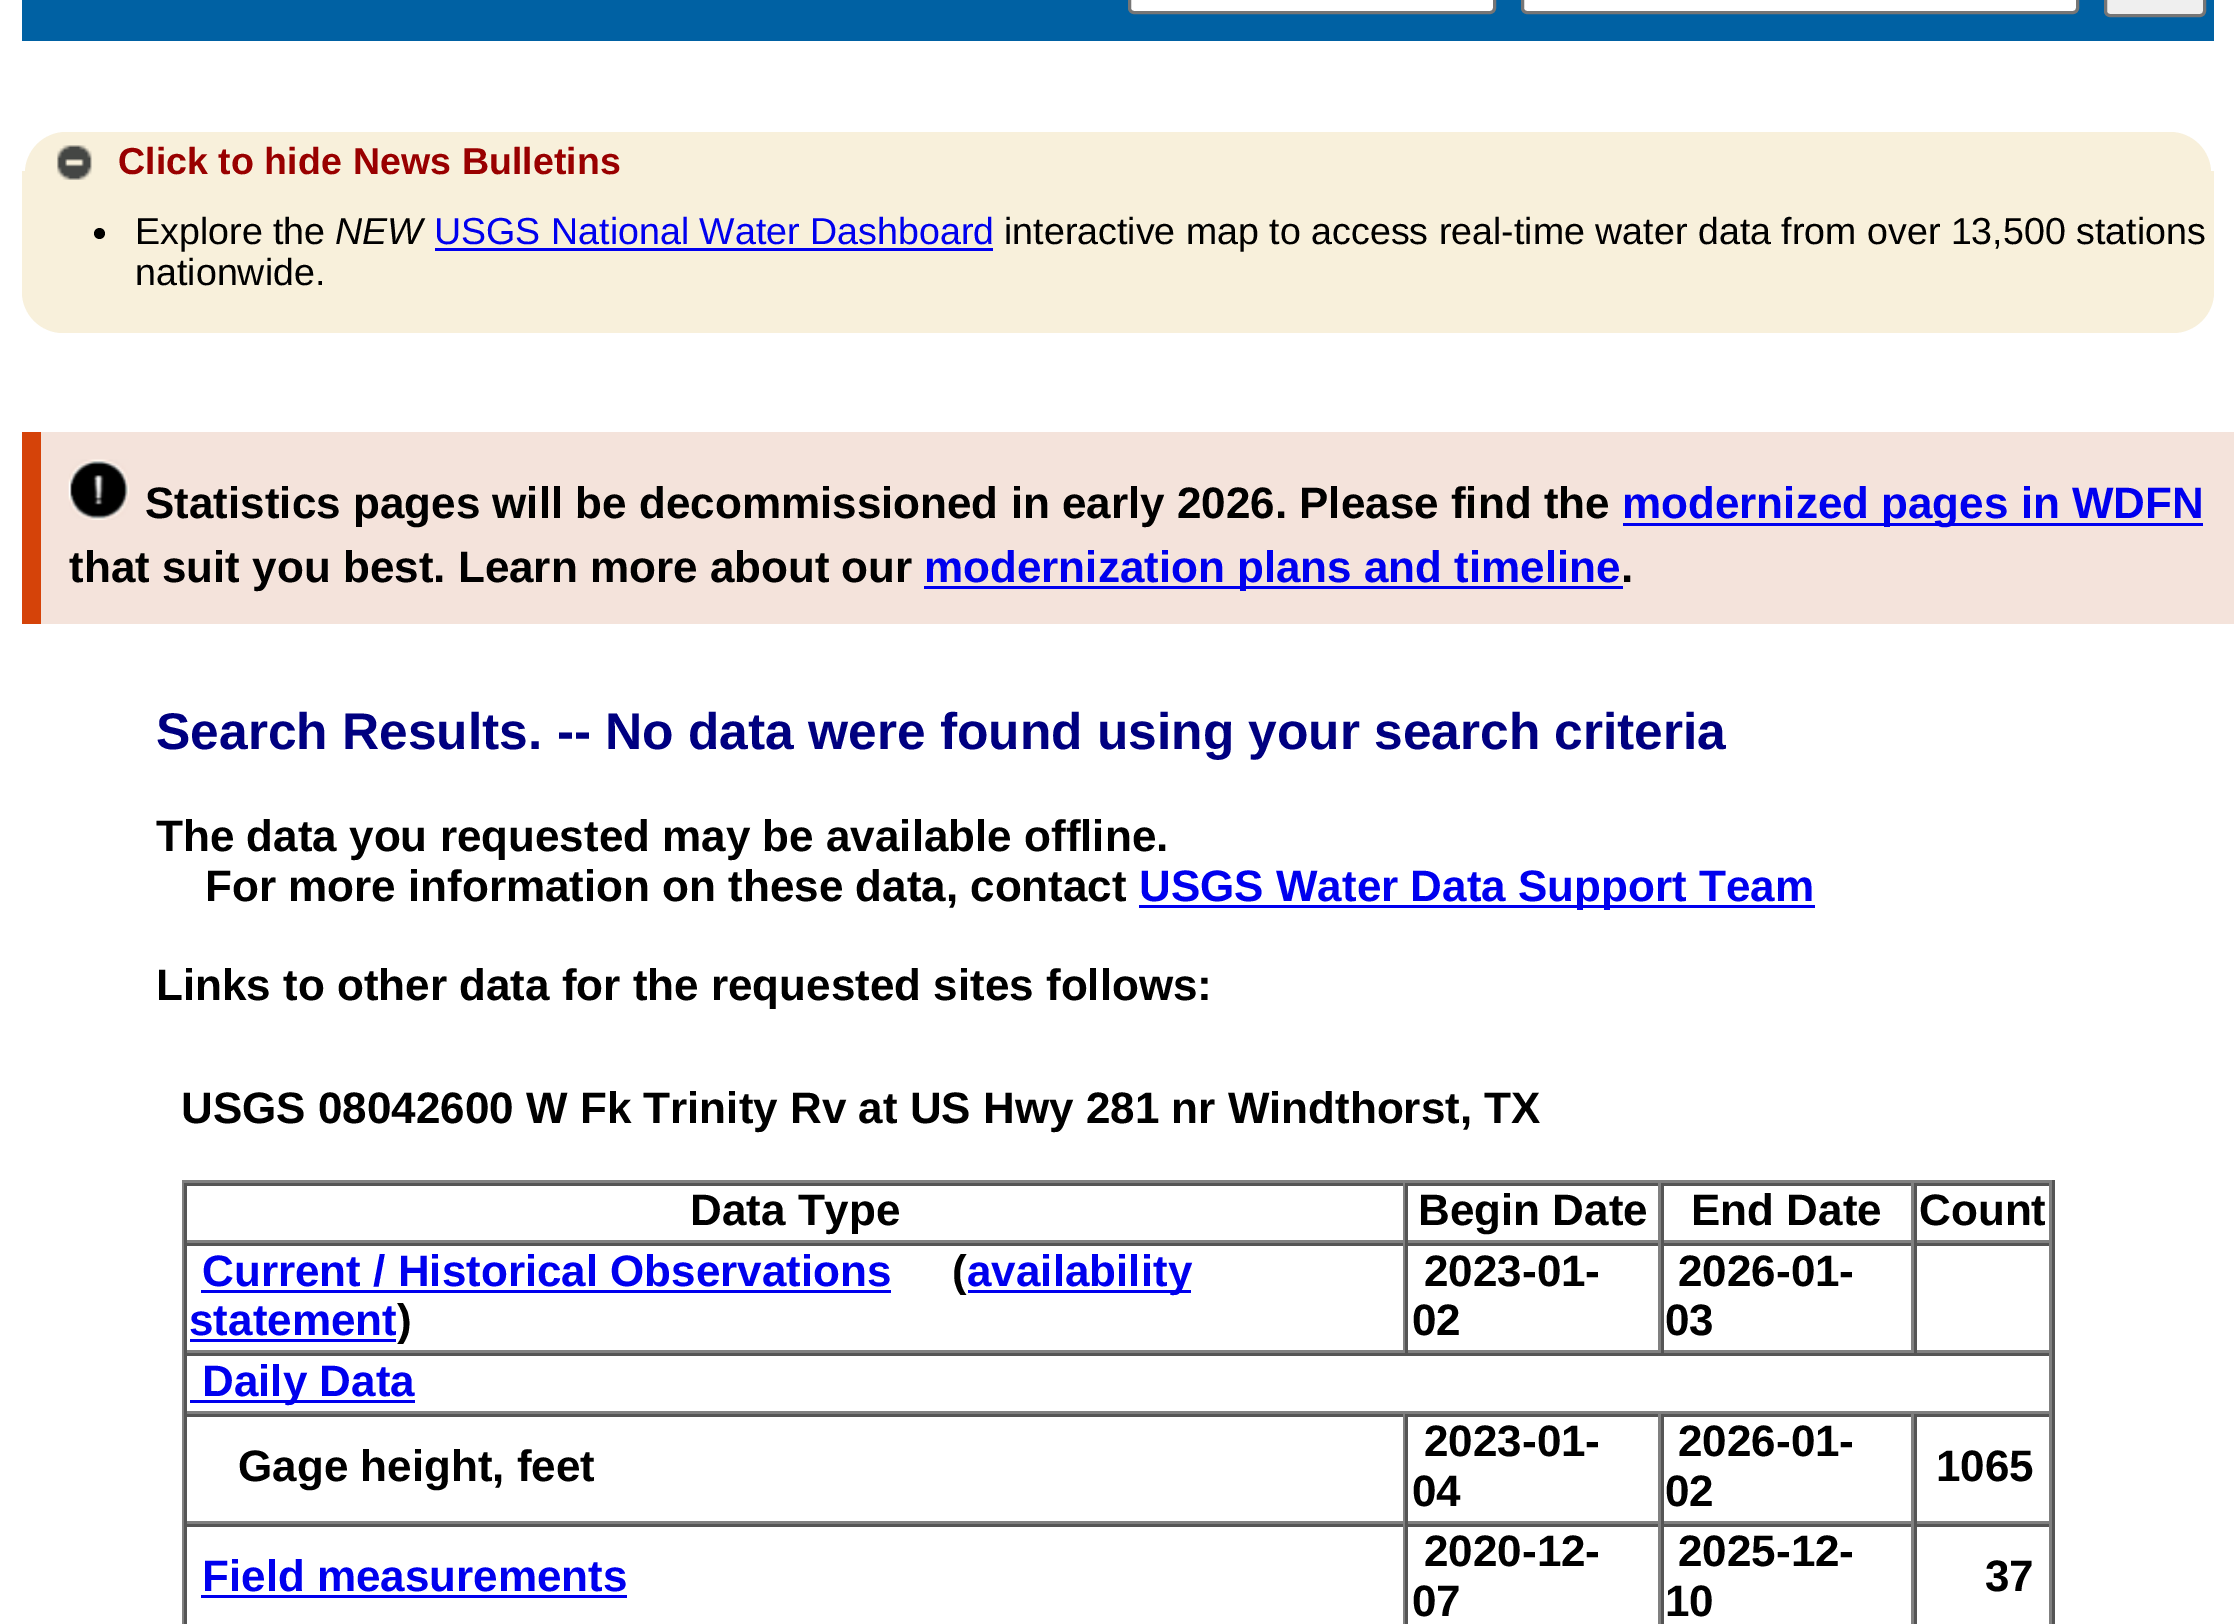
%!PS-Adobe-3.0
%%BoundingBox: 0 0 2234 1624
%%LanguageLevel: 3
%%Pages: 1
%%EndComments
%%BeginProlog
/setink { 3 { 255 div 3 1 roll } repeat setrgbcolor } def
/usefont { [ exch dup neg 0 0 3 -1 roll 0 0 ] selectfont } def
/drawtext { setink usefont moveto show } def
/fillbox { setink rectfill } def
/disc { newpath 0 360 arc closepath } def
/rrect { 5 dict begin { /r /h /w /y /x } { exch def } forall
  x r add y moveto x w add y 2 copy h add r arct x w add y h add x 1 index r arct
  x y h add x y r arct x y 2 copy exch w add exch r arct closepath end } def
/drawimage { 5 dict begin { /h /w /y /x /name } { exch def } forall
  gsave x y translate w h scale
  w h 8 [w 0 0 h 0 0] name (r) file false 3 colorimage grestore end } def
%%EndProlog
%%BeginSetup
<< /PageSize [2234 1624] >> setpagedevice
%%EndSetup
%%Page: 1 1
0 1624 translate 1 -1 scale
4 setmiterlimit
0 0 2234 1624 255 255 255 fillbox
22 0 2192 41 0 97 163 fillbox
255 255 255 setink
1129.5 -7.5 365 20 4.5 rrect gsave fill grestore
118 118 118 setink
3 setlinewidth
stroke
255 255 255 setink
1522.5 -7.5 555 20 4.5 rrect gsave fill grestore
118 118 118 setink
stroke
239 239 239 setink
2105.5 -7.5 99 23 4.5 rrect gsave fill grestore
118 118 118 setink
stroke
248 240 219 setink
22 171 moveto 2214 171 lineto 2214 292 lineto 2214 314.5 2195.5 333 2173 333 curveto 63 333 lineto 40.5 333 22 314.5 22 292 curveto closepath fill
66 132 moveto 2170 132 lineto 2192.5 132 2211 150.5 2211 173 curveto 2211 190 lineto 25 190 lineto 25 173 lineto 25 150.5 43.5 132 66 132 curveto closepath fill
(assets/img1.rgb) 57 145 35 35 drawimage
(Click to hide) 118 174 /LiberationSans-Bold 37.6 153 0 0 drawtext
(News Bulletins) 353 174 /LiberationSans-Bold 37.6 153 0 0 drawtext
0 0 0 setink
99.5 233.5 5.5 disc fill
(Explore the) 135 244 /LiberationSans-Regular 37.6 0 0 0 drawtext
(NEW) 335 244 /LiberationSans-Italic 37.6 0 0 0 drawtext
(USGS National Water Dashboard) 434 244 /LiberationSans-Regular 37.6 0 0 238 drawtext
435 248 558 3 0 0 238 fillbox
(interactive map to access real-time water data from over 13,500 stations) 1004 244 /LiberationSans-Regular 37.6 0 0 0 drawtext
(nationwide.) 135 285 /LiberationSans-Regular 37.6 0 0 0 drawtext
41 432 2193 192 244 227 219 fillbox
22 432 19 192 213 67 9 fillbox
(assets/img2.rgb) 68 459 62 61 drawimage
(Statistics pages will be decommissioned in early 2026. Please find the) 145 518 /LiberationSans-Bold 44 0 0 0 drawtext
1623 523 580 3 0 0 238 fillbox
(modernized pages in WDFN) 1622 518 /LiberationSans-Bold 44 0 0 238 drawtext
(that suit you best. Learn more about our) 69 582 /LiberationSans-Bold 44 0 0 0 drawtext
924 586 699 3 0 0 238 fillbox
(modernization plans and timeline) 924 582 /LiberationSans-Bold 44 0 0 238 drawtext
(.) 1621 582 /LiberationSans-Bold 44 0 0 0 drawtext
/LiberationSans-Bold 51.5 usefont
0 0 128 setink
156 749 moveto -0.1 0 32 (Search Results. -- No data were found using your search criteria) widthshow
(The data you requested may be available offline.) 156 851 /LiberationSans-Bold 44 0 0 0 drawtext
(For more information on these data, contact) 205 901 /LiberationSans-Bold 44 0 0 0 drawtext
1139 905 676 3 0 0 238 fillbox
(USGS Water Data Support Team) 1139 901 /LiberationSans-Bold 44 0 0 238 drawtext
(Links to other data for the requested sites follows:) 156 1000 /LiberationSans-Bold 44 0 0 0 drawtext
(USGS 08042600 W Fk Trinity Rv at US Hwy 281 nr Windthorst, TX) 181 1123 /LiberationSans-Bold 44 0 0 0 drawtext
182 1180 1872 3 128 128 128 fillbox
2052 1180 3 444 85 85 85 fillbox
182 1180 3 444 128 128 128 fillbox
184 1183 1868 3 85 85 85 fillbox
1403 1183 2 60 128 128 128 fillbox
184 1240 1221 3 128 128 128 fillbox
184 1183 3 60 85 85 85 fillbox
(Data Type) 690 1225 /LiberationSans-Bold 44 0 0 0 drawtext
1658 1183 3 60 128 128 128 fillbox
1405 1240 256 3 128 128 128 fillbox
1405 1183 3 60 85 85 85 fillbox
(Begin Date) 1418 1225 /LiberationSans-Bold 44 0 0 0 drawtext
1911 1183 3 60 128 128 128 fillbox
1661 1240 253 3 128 128 128 fillbox
1661 1183 3 60 85 85 85 fillbox
(End Date) 1691 1225 /LiberationSans-Bold 44 0 0 0 drawtext
2049 1183 3 60 128 128 128 fillbox
1914 1240 138 3 128 128 128 fillbox
1914 1183 3 60 85 85 85 fillbox
(Count) 1919 1225 /LiberationSans-Bold 44 0 0 0 drawtext
184 1243 1868 3 85 85 85 fillbox
1403 1243 2 110 128 128 128 fillbox
184 1350 1221 3 128 128 128 fillbox
184 1243 3 110 85 85 85 fillbox
(Current / Historical Observations) 202 1286 /LiberationSans-Bold 44 0 0 238 drawtext
201 1290 690 3 0 0 238 fillbox
(\() 952 1286 /LiberationSans-Bold 44 0 0 0 drawtext
968 1290 223 3 0 0 238 fillbox
(availability) 967 1286 /LiberationSans-Bold 44 0 0 238 drawtext
(statement) 189 1335 /LiberationSans-Bold 44 0 0 238 drawtext
190 1339 206 3 0 0 238 fillbox
(\)) 397 1335 /LiberationSans-Bold 44 0 0 0 drawtext
1658 1243 3 110 128 128 128 fillbox
1405 1350 256 3 128 128 128 fillbox
1405 1243 3 110 85 85 85 fillbox
(2023-01-) 1424 1286 /LiberationSans-Bold 44 0 0 0 drawtext
(02) 1412 1335 /LiberationSans-Bold 44 0 0 0 drawtext
1911 1243 3 110 128 128 128 fillbox
1661 1350 253 3 128 128 128 fillbox
1661 1243 3 110 85 85 85 fillbox
(2026-01-) 1678 1286 /LiberationSans-Bold 44 0 0 0 drawtext
(03) 1665 1335 /LiberationSans-Bold 44 0 0 0 drawtext
2049 1243 3 110 128 128 128 fillbox
1914 1350 138 3 128 128 128 fillbox
1914 1243 3 110 85 85 85 fillbox
184 1353 1868 3 85 85 85 fillbox
2049 1353 3 61 128 128 128 fillbox
184 1411 1868 3 128 128 128 fillbox
184 1353 3 61 85 85 85 fillbox
190 1400 225 3 0 0 238 fillbox
(Daily Data) 202 1396 /LiberationSans-Bold 44 0 0 238 drawtext
184 1414 1868 3 85 85 85 fillbox
1403 1414 2 110 128 128 128 fillbox
184 1521 1221 3 128 128 128 fillbox
184 1414 3 110 85 85 85 fillbox
(Gage height, feet) 238 1481 /LiberationSans-Bold 44 0 0 0 drawtext
1658 1414 3 110 128 128 128 fillbox
1405 1521 256 3 128 128 128 fillbox
1405 1414 3 110 85 85 85 fillbox
(2023-01-) 1424 1456 /LiberationSans-Bold 44 0 0 0 drawtext
(04) 1412 1506 /LiberationSans-Bold 44 0 0 0 drawtext
1911 1414 3 110 128 128 128 fillbox
1661 1521 253 3 128 128 128 fillbox
1661 1414 3 110 85 85 85 fillbox
(2026-01-) 1678 1456 /LiberationSans-Bold 44 0 0 0 drawtext
(02) 1665 1506 /LiberationSans-Bold 44 0 0 0 drawtext
2049 1414 3 110 128 128 128 fillbox
1914 1521 138 3 128 128 128 fillbox
1914 1414 3 110 85 85 85 fillbox
(1065) 1936 1481 /LiberationSans-Bold 44 0 0 0 drawtext
184 1524 1868 3 85 85 85 fillbox
1403 1524 2 100 128 128 128 fillbox
184 1524 3 100 85 85 85 fillbox
(Field measurements) 202 1591 /LiberationSans-Bold 44 0 0 238 drawtext
201 1595 426 3 0 0 238 fillbox
1658 1524 3 100 128 128 128 fillbox
1405 1524 3 100 85 85 85 fillbox
(2020-12-) 1424 1566 /LiberationSans-Bold 44 0 0 0 drawtext
(07) 1412 1616 /LiberationSans-Bold 44 0 0 0 drawtext
1911 1524 3 100 128 128 128 fillbox
1661 1524 3 100 85 85 85 fillbox
(2025-12-) 1678 1566 /LiberationSans-Bold 44 0 0 0 drawtext
(10) 1665 1616 /LiberationSans-Bold 44 0 0 0 drawtext
2049 1524 3 100 128 128 128 fillbox
1914 1524 3 100 85 85 85 fillbox
(37) 1985 1591 /LiberationSans-Bold 44 0 0 0 drawtext
showpage
%%EOF
